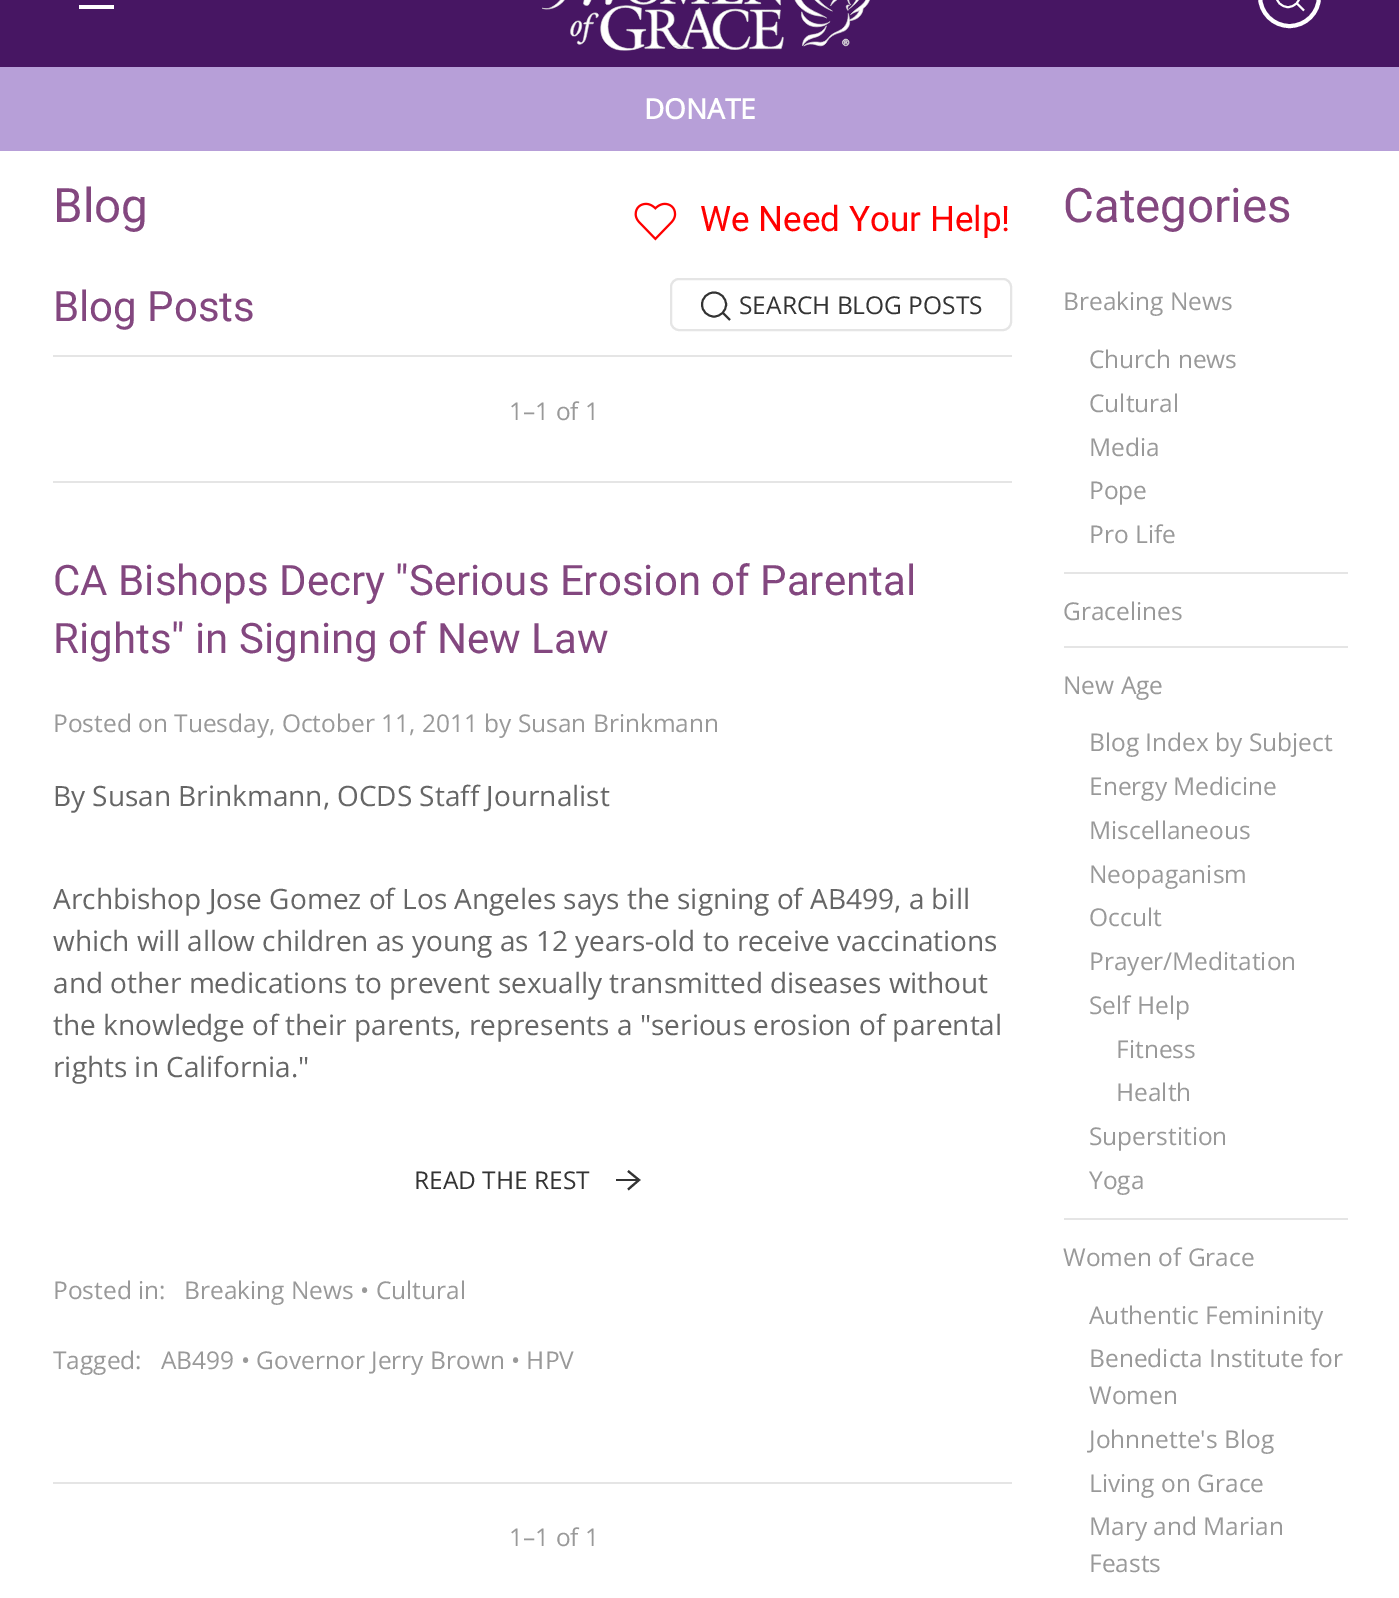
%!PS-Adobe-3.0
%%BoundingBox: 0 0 1399 1598
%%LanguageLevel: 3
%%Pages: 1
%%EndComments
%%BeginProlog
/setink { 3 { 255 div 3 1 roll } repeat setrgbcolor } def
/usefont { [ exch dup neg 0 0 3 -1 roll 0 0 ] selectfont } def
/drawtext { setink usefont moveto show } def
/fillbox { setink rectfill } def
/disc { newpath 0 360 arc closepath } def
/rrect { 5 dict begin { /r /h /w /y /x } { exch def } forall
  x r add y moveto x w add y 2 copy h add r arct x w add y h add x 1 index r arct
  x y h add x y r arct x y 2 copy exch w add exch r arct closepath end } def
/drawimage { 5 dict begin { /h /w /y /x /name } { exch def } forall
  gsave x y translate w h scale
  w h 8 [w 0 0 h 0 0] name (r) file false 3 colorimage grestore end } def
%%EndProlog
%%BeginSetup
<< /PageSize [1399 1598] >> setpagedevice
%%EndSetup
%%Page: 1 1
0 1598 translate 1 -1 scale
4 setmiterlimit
0 0 1399 1598 255 255 255 fillbox
0 0 1399 67 71 22 99 fillbox
79 5 35 4 255 255 255 fillbox
(assets/img1.rgb) 542 0 328 51 drawimage
4 setlinewidth
1289.5 -3.5 29.5 disc stroke
1.9 setlinewidth
1288 -5 12 disc stroke
1297 3.5 moveto 1304 10.5 lineto closepath stroke
0 67 1399 84 183 159 216 fillbox
(DONATE) 644 119 /OpenSans-Bold 28 255 255 255 drawtext
(Blog) 53 222 /Roboto-Regular 47.5 131 71 127 drawtext
(assets/img2.rgb) 634 202 43 39 drawimage
(We Need Your Help!) 700 231 /Roboto-Regular 35 255 0 0 drawtext
(Blog Posts) 53 321 /Roboto-Regular 42 131 71 127 drawtext
229 229 229 setink
2 setlinewidth
671 279 340 51 8 rrect stroke
51 51 51 setink
1.9 setlinewidth
714 304.5 12 disc stroke
723 313 moveto 730 320 lineto closepath stroke
(SEARCH BLOG POSTS) 739 314 /OpenSans-Regular 24.5 51 51 51 drawtext
53 355 959 2 229 229 229 fillbox
(1–1 of 1) 509 420 /OpenSans-Regular 24.5 153 153 153 drawtext
53 481 959 2 229 229 229 fillbox
(CA Bishops Decry "Serious Erosion of Parental) 53 595 /Roboto-Regular 42 131 71 127 drawtext
(Rights" in Signing of New Law) 53 653 /Roboto-Regular 42 131 71 127 drawtext
(Posted on Tuesday, October 11, 2011 by Susan Brinkmann) 53 732 /OpenSans-Regular 24.5 153 153 153 drawtext
(By Susan Brinkmann, OCDS Staff Journalist) 53 806 /OpenSans-Regular 28 102 102 102 drawtext
(Archbishop Jose Gomez of Los Angeles says the signing of AB499, a bill) 53 909 /OpenSans-Regular 28 102 102 102 drawtext
(which will allow children as young as 12 years-old to receive vaccinations) 53 951 /OpenSans-Regular 28 102 102 102 drawtext
(and other medications to prevent sexually transmitted diseases without) 53 993 /OpenSans-Regular 28 102 102 102 drawtext
(the knowledge of their parents, represents a "serious erosion of parental) 53 1035 /OpenSans-Regular 28 102 102 102 drawtext
(rights in California.") 53 1077 /OpenSans-Regular 28 102 102 102 drawtext
(READ THE REST) 414 1189 /OpenSans-Regular 24.5 51 51 51 drawtext
2.1 setlinewidth
628 1171 moveto 639 1180 lineto 628 1189.5 lineto stroke
616 1179 23 2 51 51 51 fillbox
(Posted in:) 53 1299 /OpenSans-Regular 24.5 153 153 153 drawtext
(Breaking News • Cultural) 184 1299 /OpenSans-Regular 24.5 153 153 153 drawtext
(Tagged:) 53 1369 /OpenSans-Regular 24.5 153 153 153 drawtext
(AB499 • Governor Jerry Brown • HPV) 161 1369 /OpenSans-Regular 24.5 153 153 153 drawtext
53 1482 959 2 229 229 229 fillbox
(1–1 of 1) 509 1546 /OpenSans-Regular 24.5 153 153 153 drawtext
(Categories) 1063 222 /Roboto-Regular 47.5 131 71 127 drawtext
(Breaking News) 1063 310 /OpenSans-Regular 24.5 153 153 153 drawtext
(Church news) 1089 368 /OpenSans-Regular 24.5 153 153 153 drawtext
(Cultural) 1089 412 /OpenSans-Regular 24.5 153 153 153 drawtext
(Media) 1089 456 /OpenSans-Regular 24.5 153 153 153 drawtext
(Pope) 1089 499 /OpenSans-Regular 24.5 153 153 153 drawtext
(Pro Life) 1089 543 /OpenSans-Regular 24.5 153 153 153 drawtext
1064 572 284 2 229 229 229 fillbox
(Gracelines) 1063 620 /OpenSans-Regular 24.5 153 153 153 drawtext
1064 646 284 2 229 229 229 fillbox
(New Age) 1063 694 /OpenSans-Regular 24.5 153 153 153 drawtext
(Blog Index by Subject) 1089 751 /OpenSans-Regular 24.5 153 153 153 drawtext
(Energy Medicine) 1089 795 /OpenSans-Regular 24.5 153 153 153 drawtext
(Miscellaneous) 1089 839 /OpenSans-Regular 24.5 153 153 153 drawtext
(Neopaganism) 1089 883 /OpenSans-Regular 24.5 153 153 153 drawtext
(Occult) 1089 926 /OpenSans-Regular 24.5 153 153 153 drawtext
(Prayer/Meditation) 1089 970 /OpenSans-Regular 24.5 153 153 153 drawtext
(Self Help) 1089 1014 /OpenSans-Regular 24.5 153 153 153 drawtext
(Fitness) 1116 1058 /OpenSans-Regular 24.5 153 153 153 drawtext
(Health) 1116 1101 /OpenSans-Regular 24.5 153 153 153 drawtext
(Superstition) 1089 1145 /OpenSans-Regular 24.5 153 153 153 drawtext
(Yoga) 1089 1189 /OpenSans-Regular 24.5 153 153 153 drawtext
1064 1218 284 2 229 229 229 fillbox
(Women of Grace) 1063 1266 /OpenSans-Regular 24.5 153 153 153 drawtext
(Authentic Femininity) 1089 1324 /OpenSans-Regular 24.5 153 153 153 drawtext
(Benedicta Institute for) 1089 1367 /OpenSans-Regular 24.5 153 153 153 drawtext
(Women) 1089 1404 /OpenSans-Regular 24.5 153 153 153 drawtext
(Johnnette's Blog) 1089 1448 /OpenSans-Regular 24.5 153 153 153 drawtext
(Living on Grace) 1089 1492 /OpenSans-Regular 24.5 153 153 153 drawtext
(Mary and Marian) 1089 1535 /OpenSans-Regular 24.5 153 153 153 drawtext
(Feasts) 1089 1572 /OpenSans-Regular 24.5 153 153 153 drawtext
showpage
%%EOF
